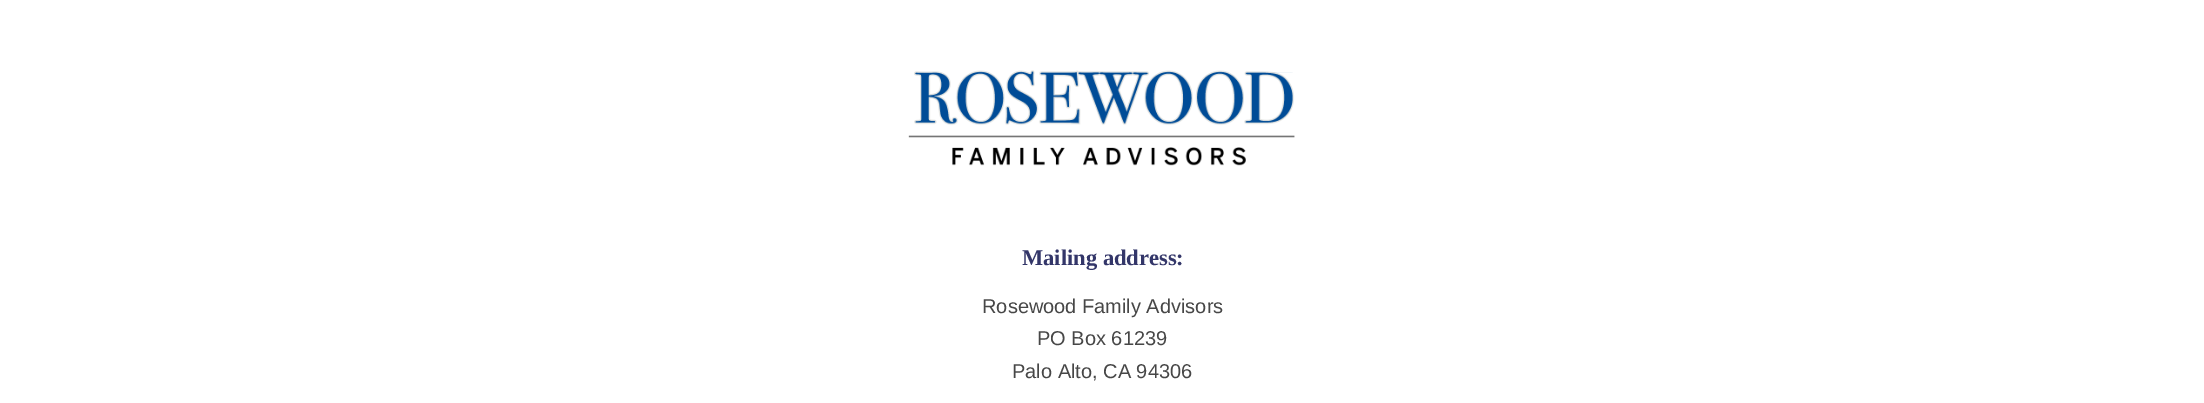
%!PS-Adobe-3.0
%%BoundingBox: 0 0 2204 403
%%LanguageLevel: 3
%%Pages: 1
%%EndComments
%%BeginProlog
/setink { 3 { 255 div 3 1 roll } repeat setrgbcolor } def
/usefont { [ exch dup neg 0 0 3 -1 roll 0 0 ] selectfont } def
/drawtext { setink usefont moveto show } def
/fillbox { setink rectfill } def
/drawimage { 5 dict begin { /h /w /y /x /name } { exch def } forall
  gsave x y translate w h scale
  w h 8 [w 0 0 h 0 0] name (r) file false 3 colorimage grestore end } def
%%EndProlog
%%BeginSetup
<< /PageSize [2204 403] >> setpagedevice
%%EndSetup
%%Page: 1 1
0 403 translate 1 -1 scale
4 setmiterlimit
0 0 2204 403 255 255 255 fillbox
(assets/img1.rgb) 908 70 387 96 drawimage
(Mailing address:) 1022 265 /LiberationSerif-Bold 22.5 51 54 105 drawtext
(Rosewood Family Advisors) 982 313 /LiberationSans-Regular 20 71 71 71 drawtext
(PO Box 61239) 1037 345 /LiberationSans-Regular 20 71 71 71 drawtext
(Palo Alto, CA 94306) 1012 378 /LiberationSans-Regular 20 71 71 71 drawtext
showpage
%%EOF
